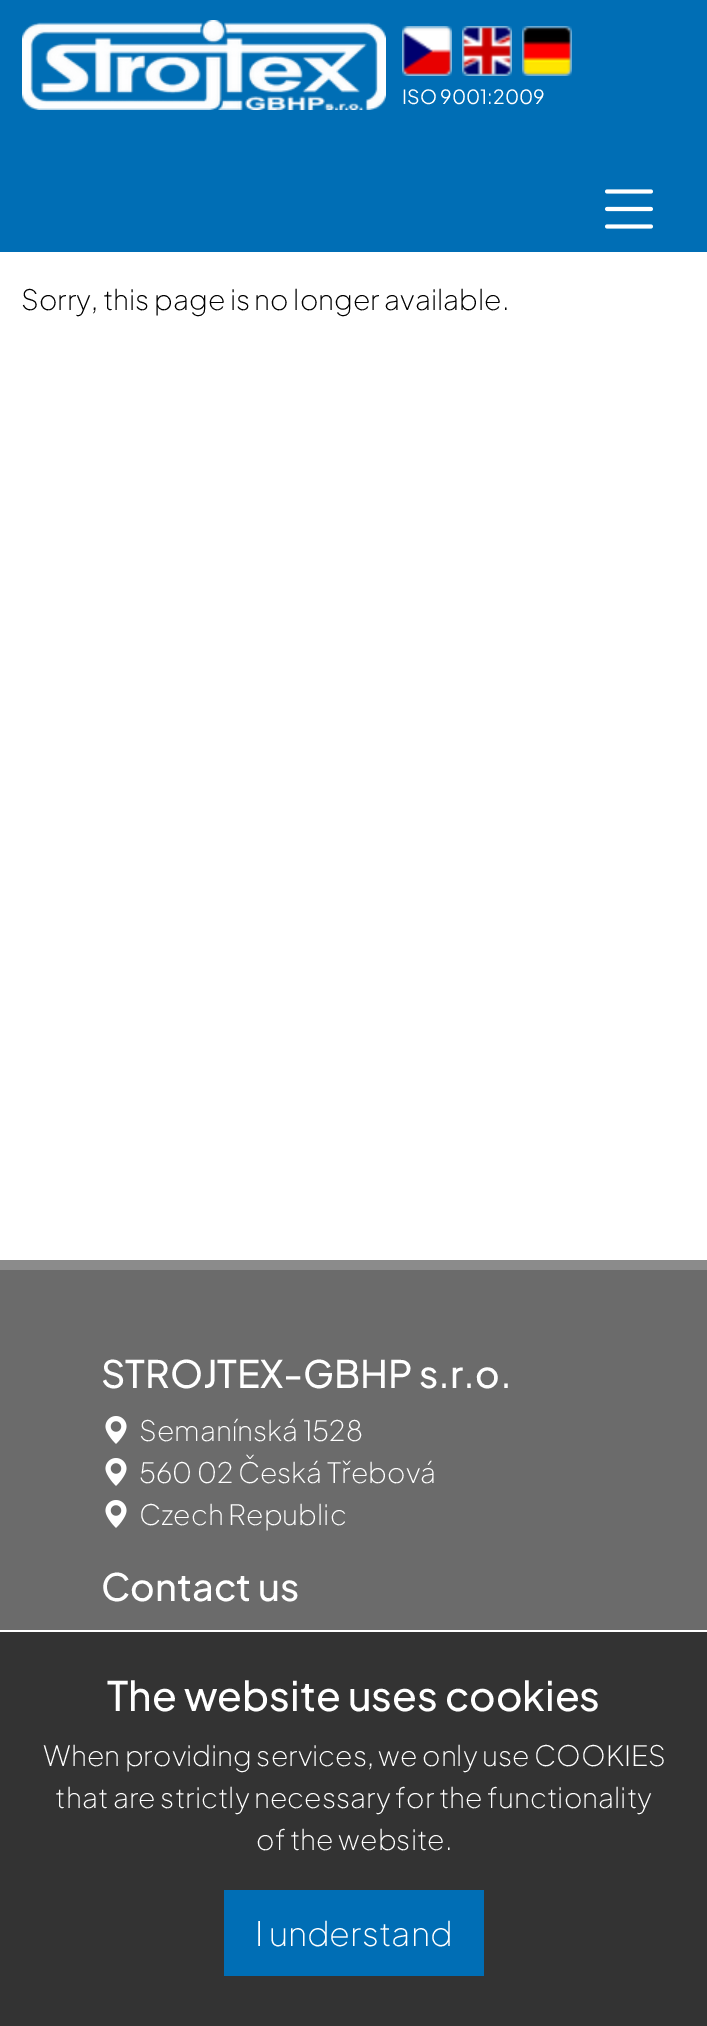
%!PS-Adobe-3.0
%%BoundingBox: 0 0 707 2026
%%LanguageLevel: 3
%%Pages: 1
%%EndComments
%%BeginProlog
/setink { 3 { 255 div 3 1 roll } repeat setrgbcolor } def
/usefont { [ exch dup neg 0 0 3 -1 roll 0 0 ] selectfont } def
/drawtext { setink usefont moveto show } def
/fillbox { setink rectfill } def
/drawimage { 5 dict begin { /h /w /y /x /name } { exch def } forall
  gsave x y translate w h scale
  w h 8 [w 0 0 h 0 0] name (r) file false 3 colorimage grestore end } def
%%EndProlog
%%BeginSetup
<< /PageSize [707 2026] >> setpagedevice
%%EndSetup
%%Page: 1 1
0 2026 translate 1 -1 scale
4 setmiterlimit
0 0 707 2026 255 255 255 fillbox
0 0 707 252 0 110 181 fillbox
(assets/img1.rgb) 22 20 364 90 drawimage
(assets/img2.rgb) 402 26 50 50 drawimage
(assets/img3.rgb) 462 26 50 50 drawimage
(assets/img4.rgb) 522 26 50 50 drawimage
(ISO 9001:2009) 402 104 /PlusJakartaSans-Regular 19.5 255 255 255 drawtext
(assets/img5.rgb) 605 189 48 40 drawimage
(Sorry, this page is no longer available.) 21 310 /PlusJakartaSans-ExtraLight 28 0 0 0 drawtext
0 1270 707 360 107 107 107 fillbox
0 1260 707 10 139 139 139 fillbox
(STROJTEX-GBHP s.r.o.) 101 1388 /PlusJakartaSans-Medium 37.75 255 255 255 drawtext
(assets/img6.rgb) 105 1416 22 28 drawimage
(Semanínská 1528) 139 1441 /PlusJakartaSans-ExtraLight 28 255 255 255 drawtext
(assets/img6.rgb) 105 1458 22 28 drawimage
(560 02 Česká Třebová) 139 1483 /PlusJakartaSans-ExtraLight 28 255 255 255 drawtext
(assets/img6.rgb) 105 1500 22 28 drawimage
(Czech Republic) 139 1525 /PlusJakartaSans-ExtraLight 28 255 255 255 drawtext
(Contact us) 101 1601 /PlusJakartaSans-Medium 37.75 255 255 255 drawtext
0 1632 707 394 51 51 51 fillbox
(The website uses cookies) 107 1711 /PlusJakartaSans-Medium 40.6 255 255 255 drawtext
(When providing services, we only use COOKIES) 43 1766 /PlusJakartaSans-ExtraLight 28 255 255 255 drawtext
(that are strictly necessary for the functionality) 55 1808 /PlusJakartaSans-ExtraLight 28 255 255 255 drawtext
(of the website.) 256 1850 /PlusJakartaSans-ExtraLight 28 255 255 255 drawtext
224 1890 260 86 0 110 181 fillbox
(I understand) 255 1946 /PlusJakartaSans-ExtraLight 33.5 255 255 255 drawtext
showpage
%%EOF
